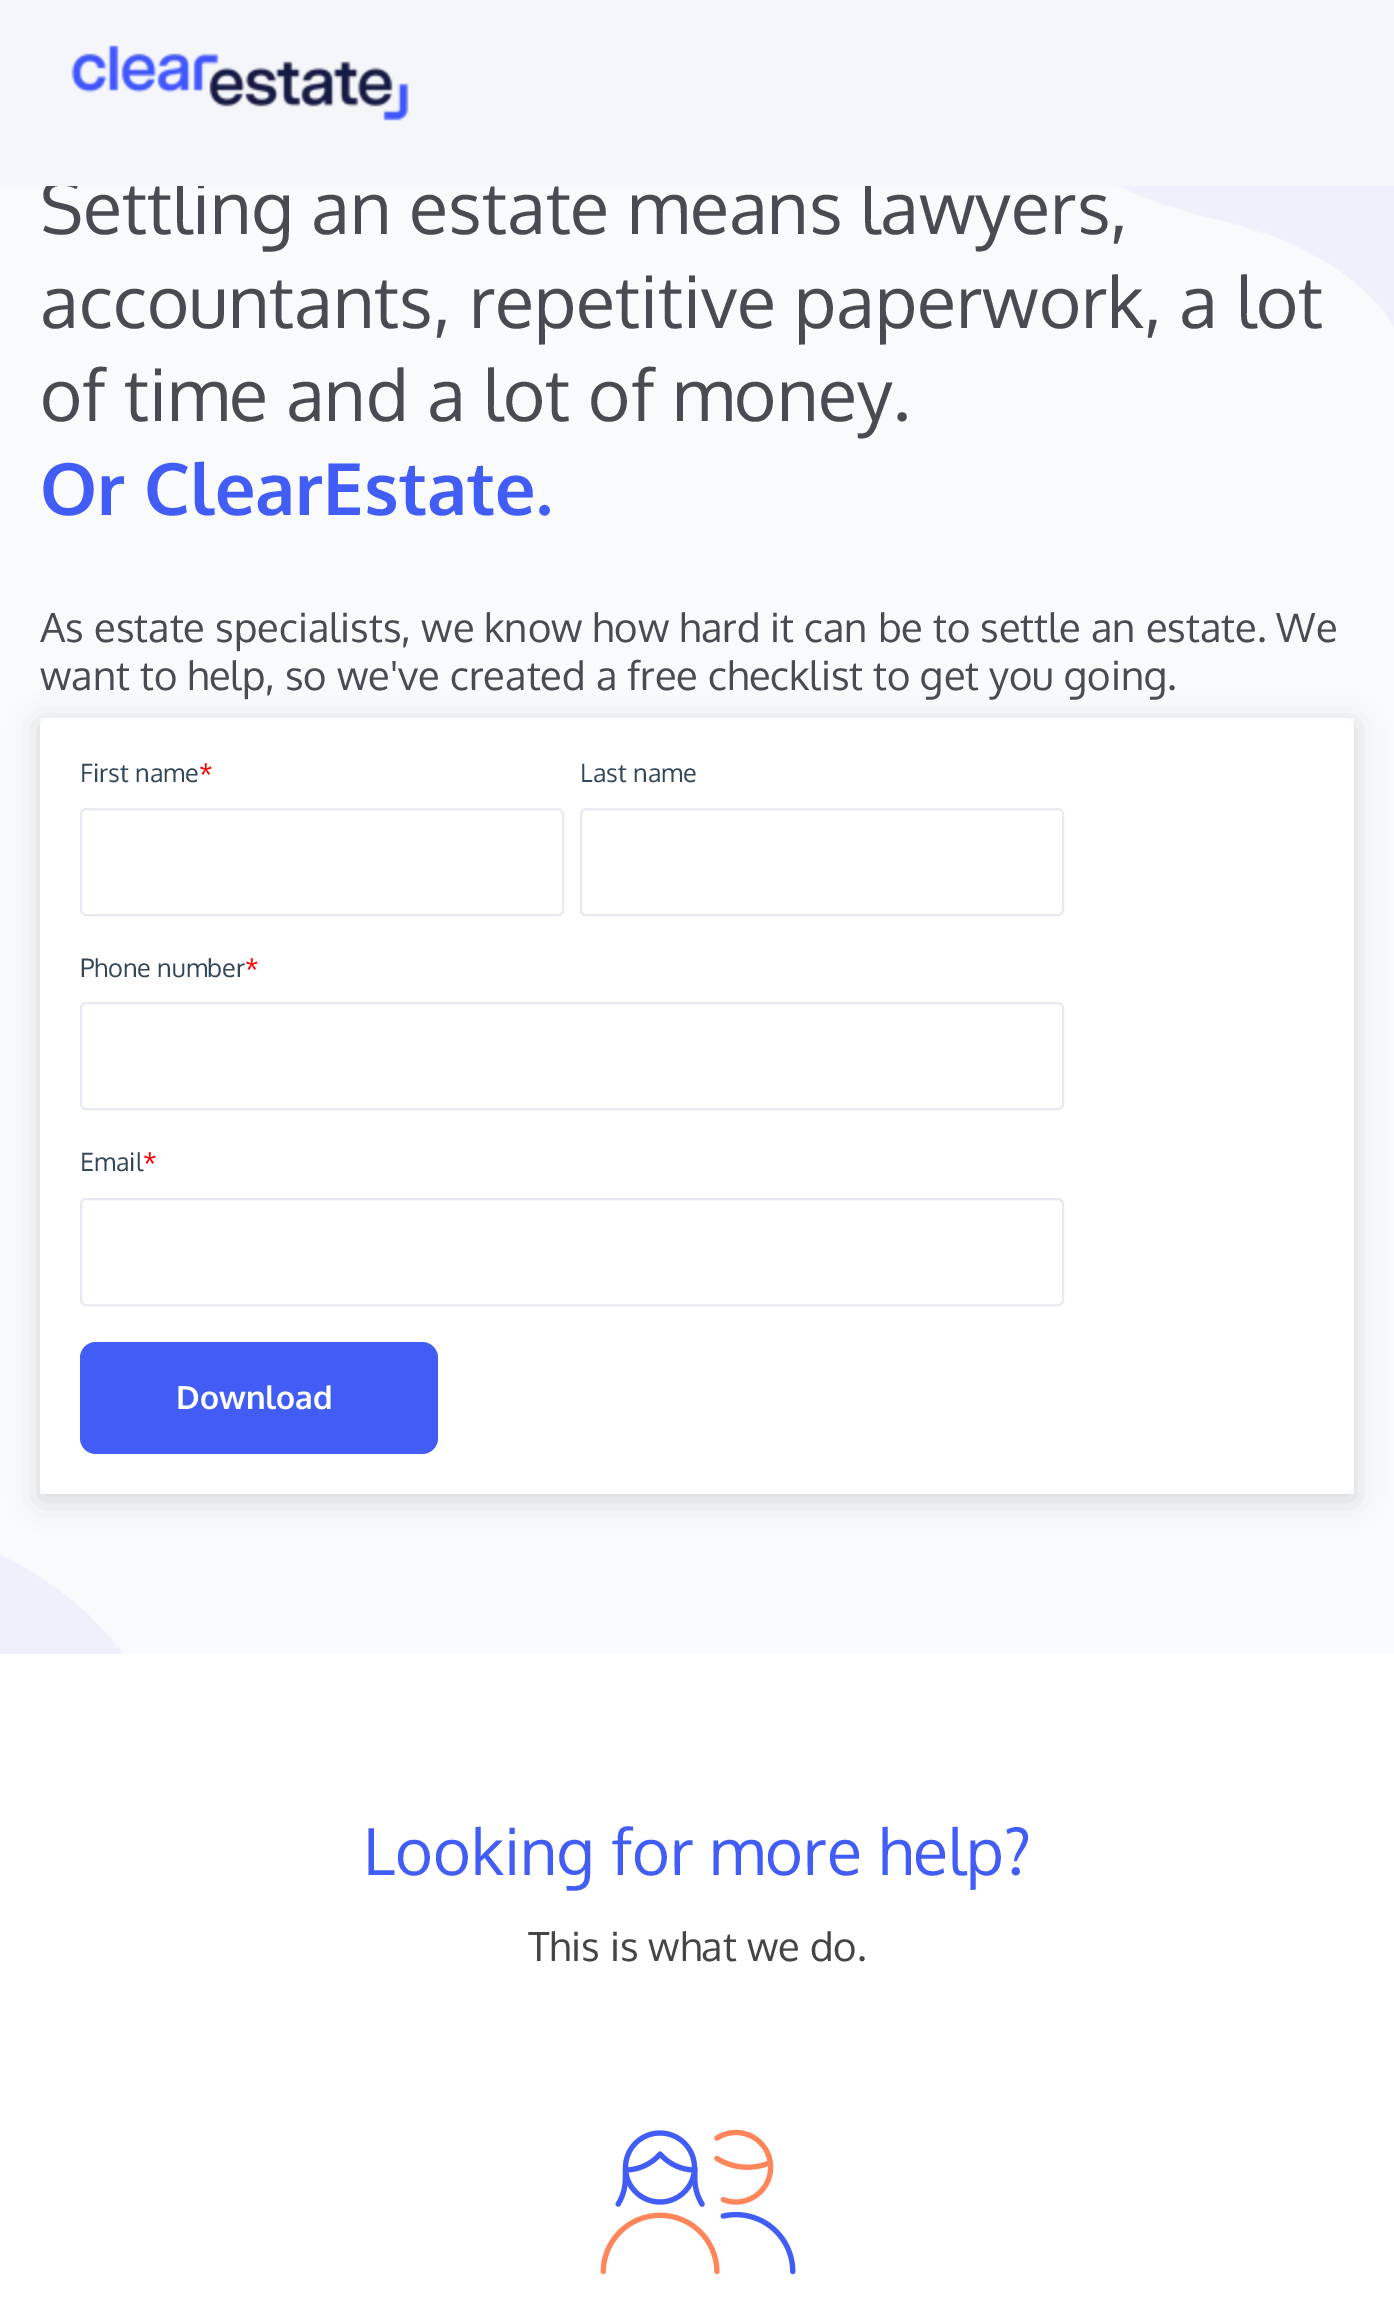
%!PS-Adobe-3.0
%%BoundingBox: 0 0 1394 2317
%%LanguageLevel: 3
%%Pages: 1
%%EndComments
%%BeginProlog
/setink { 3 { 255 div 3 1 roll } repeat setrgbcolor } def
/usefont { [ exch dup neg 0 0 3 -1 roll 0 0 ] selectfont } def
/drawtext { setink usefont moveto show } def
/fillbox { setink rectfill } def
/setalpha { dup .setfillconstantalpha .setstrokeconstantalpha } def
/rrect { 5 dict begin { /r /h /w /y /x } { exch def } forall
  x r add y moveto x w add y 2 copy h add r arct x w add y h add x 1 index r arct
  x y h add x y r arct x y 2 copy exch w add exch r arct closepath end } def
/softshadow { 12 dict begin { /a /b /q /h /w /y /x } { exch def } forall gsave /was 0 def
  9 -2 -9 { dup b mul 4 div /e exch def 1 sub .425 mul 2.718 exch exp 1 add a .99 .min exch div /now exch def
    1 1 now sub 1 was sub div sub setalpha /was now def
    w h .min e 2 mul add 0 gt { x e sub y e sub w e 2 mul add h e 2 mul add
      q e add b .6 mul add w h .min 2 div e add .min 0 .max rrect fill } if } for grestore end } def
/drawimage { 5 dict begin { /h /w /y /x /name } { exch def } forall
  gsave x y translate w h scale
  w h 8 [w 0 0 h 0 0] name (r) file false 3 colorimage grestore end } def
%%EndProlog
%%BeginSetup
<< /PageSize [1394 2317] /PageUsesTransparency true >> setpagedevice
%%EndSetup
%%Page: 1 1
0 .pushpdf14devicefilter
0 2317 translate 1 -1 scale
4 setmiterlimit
0 0 1394 2317 255 255 255 fillbox
0 186 1394 1468 248 250 252 fillbox
(assets/img2.rgb) 0 186 1394 1468 drawimage
(Settling an estate means lawyers,) 40 234 /Oxygen-Regular 72 73 74 82 drawtext
0 0 1394 186 245 246 250 fillbox
(assets/img1.rgb) 71 45 338 76 drawimage
(accountants, repetitive paperwork, a lot) 40 328 /Oxygen-Regular 72 73 74 82 drawtext
(of time and a lot of money.) 40 421 /Oxygen-Regular 72 73 74 82 drawtext
(Or ClearEstate.) 40 515 /Oxygen-Bold 72 66 93 246 drawtext
(As estate specialists, we know how hard it can be to settle an estate. We) 40 642 /Oxygen-Regular 40 73 74 82 drawtext
gsave
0 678 moveto 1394 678 lineto 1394 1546 lineto 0 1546 lineto closepath 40 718 moveto 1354 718 lineto 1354 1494 lineto 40 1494 lineto closepath eoclip newpath
69 69 69 setink
40 724 1314 776 0 15 0.2 softshadow
grestore
(want to help, so we've created a free checklist to get you going.) 40 690 /Oxygen-Regular 40 73 74 82 drawtext
255 255 255 setink
40 718 1314 776 12 rrect fill
(First name) 80 782 /Oxygen-Regular 25.25 51 71 91 drawtext
(*) 199 782 /Oxygen-Regular 25.25 255 0 0 drawtext
231 234 243 setink
2 setlinewidth
81 809 482 106 5 rrect stroke
(Last name) 580 782 /Oxygen-Regular 25.25 51 71 91 drawtext
231 234 243 setink
581 809 482 106 5 rrect stroke
(Phone number) 80 977 /Oxygen-Regular 25.25 51 71 91 drawtext
(*) 245 977 /Oxygen-Regular 25.25 255 0 0 drawtext
231 234 243 setink
81 1003 982 106 5 rrect stroke
(Email) 80 1171 /Oxygen-Regular 25.25 51 71 91 drawtext
(*) 143 1171 /Oxygen-Regular 25.25 255 0 0 drawtext
231 234 243 setink
81 1199 982 106 5 rrect stroke
66 93 246 setink
80 1342 358 112 16 rrect fill
(Download) 176 1409 /Oxygen-Bold 32 255 255 255 drawtext
(Looking for more help?) 363 1875 /Oxygen-Regular 64.6 66 93 246 drawtext
(This is what we do.) 528 1961 /Oxygen-Regular 40 69 69 69 drawtext
(assets/img3.rgb) 600 2129 196 146 drawimage
.poppdf14devicefilter showpage
%%EOF
